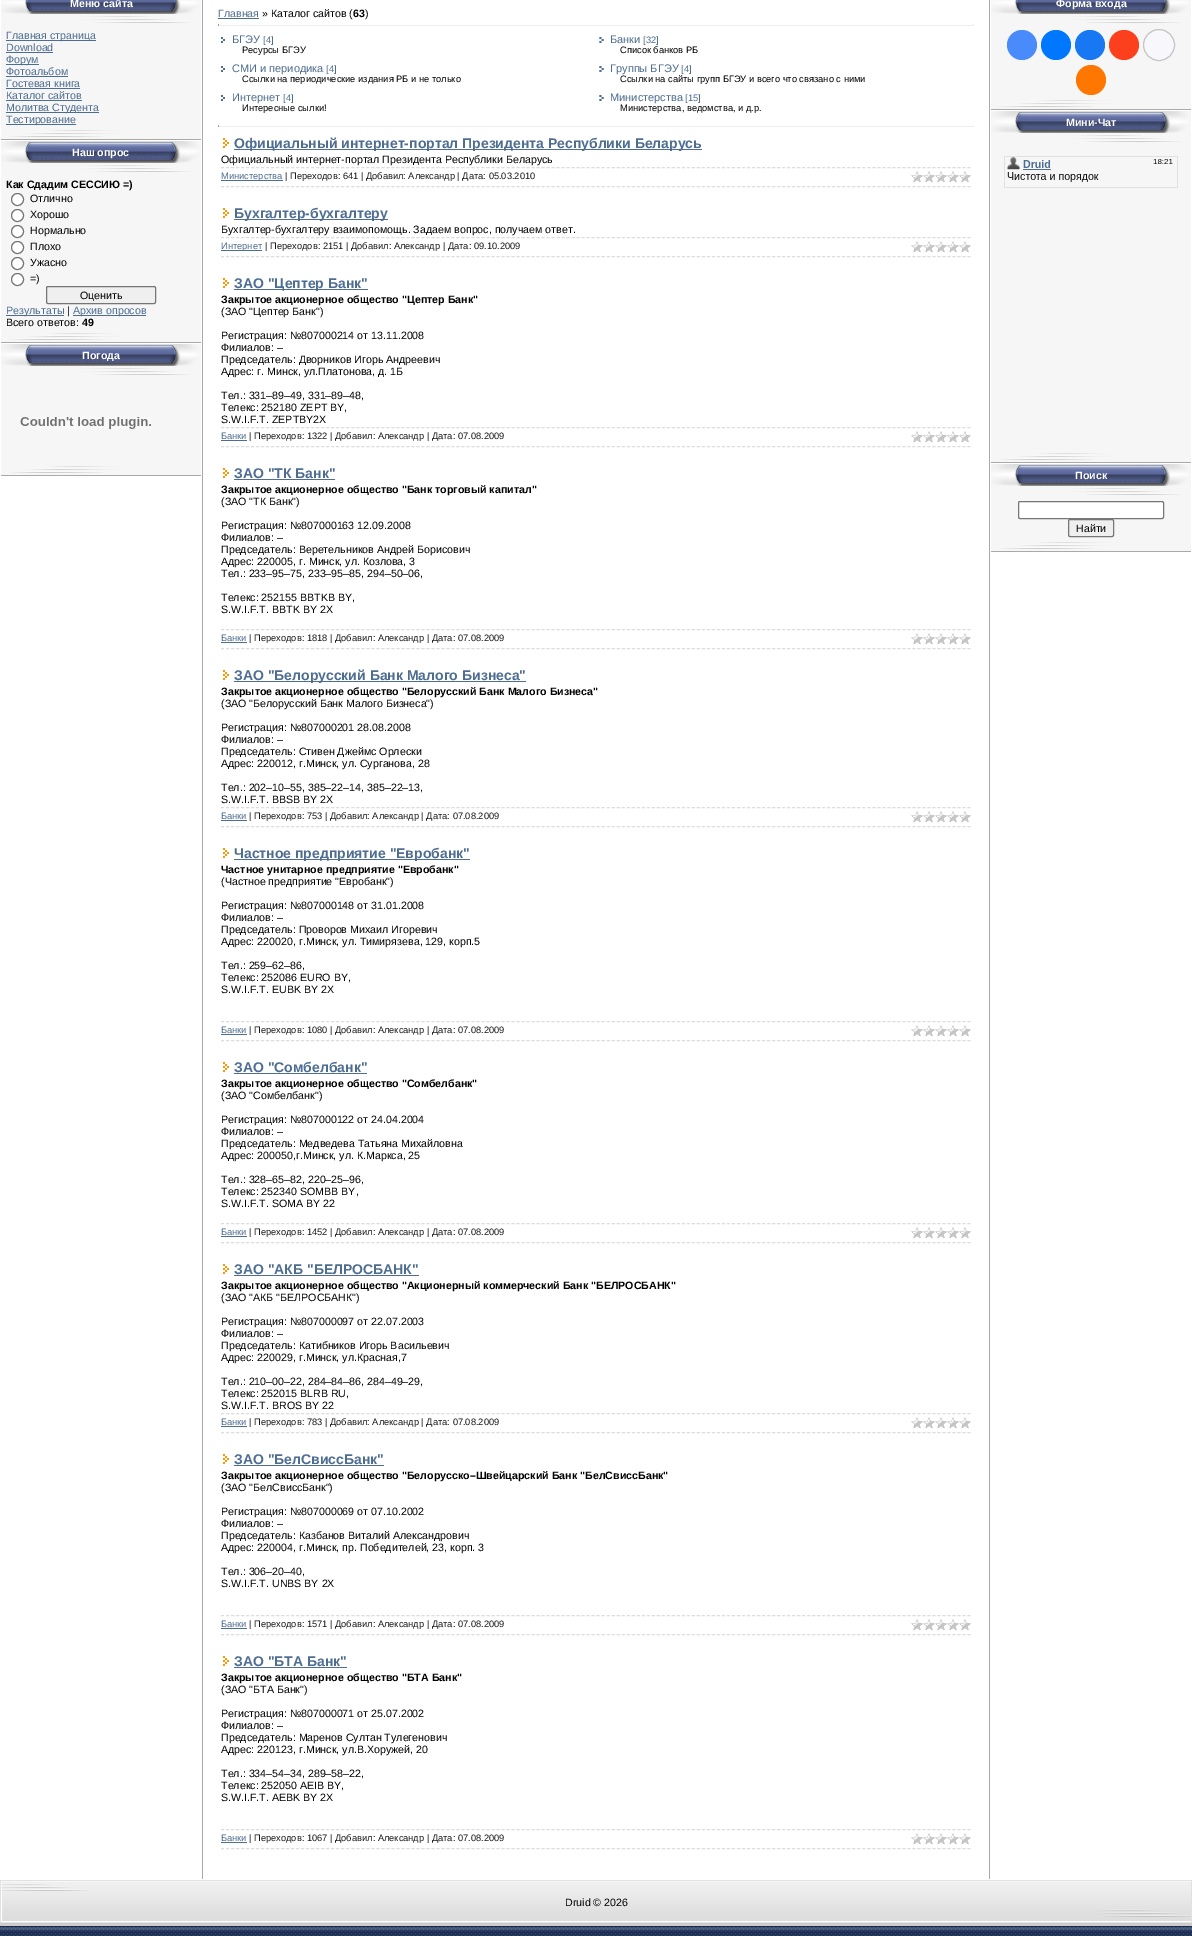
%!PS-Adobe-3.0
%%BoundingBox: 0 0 1192 1936
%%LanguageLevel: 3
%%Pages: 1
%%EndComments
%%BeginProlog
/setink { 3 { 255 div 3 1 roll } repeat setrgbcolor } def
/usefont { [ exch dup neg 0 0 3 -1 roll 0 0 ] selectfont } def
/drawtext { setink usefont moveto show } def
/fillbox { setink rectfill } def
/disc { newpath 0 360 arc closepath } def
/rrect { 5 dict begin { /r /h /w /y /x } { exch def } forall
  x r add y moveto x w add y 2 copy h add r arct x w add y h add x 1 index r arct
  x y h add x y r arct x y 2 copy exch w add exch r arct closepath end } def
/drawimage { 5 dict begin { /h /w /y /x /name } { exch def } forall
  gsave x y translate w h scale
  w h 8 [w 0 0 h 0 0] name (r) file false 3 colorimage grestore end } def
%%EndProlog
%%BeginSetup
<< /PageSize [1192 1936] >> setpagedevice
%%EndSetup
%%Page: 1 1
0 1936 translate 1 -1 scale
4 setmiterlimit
0 0 1192 1936 255 255 255 fillbox
(assets/img1.rgb) 1 0 200 14 drawimage
(Меню сайта) 70 7 /LiberationSans-Bold 10.65 255 255 255 drawtext
(assets/img2.rgb) 1 14 200 10 drawimage
1 24 200 106 246 246 246 fillbox
6 40 90 1 77 109 145 fillbox
(Главная страница) 6 39 /LiberationSans-Regular 10.65 77 109 145 drawtext
(Download) 6 51 /LiberationSans-Regular 10.65 77 109 145 drawtext
6 52 47 1 77 109 145 fillbox
6 64 33 1 77 109 145 fillbox
(Форум) 6 63 /LiberationSans-Regular 10.65 77 109 145 drawtext
(Фотоальбом) 6 75 /LiberationSans-Regular 10.65 77 109 145 drawtext
6 76 62 1 77 109 145 fillbox
(Гостевая книга) 6 87 /LiberationSans-Regular 10.65 77 109 145 drawtext
6 88 74 1 77 109 145 fillbox
(Каталог сайтов) 6 99 /LiberationSans-Regular 10.65 77 109 145 drawtext
6 100 76 1 77 109 145 fillbox
6 112 93 1 77 109 145 fillbox
(Молитва Студента) 6 111 /LiberationSans-Regular 10.65 77 109 145 drawtext
6 124 70 1 77 109 145 fillbox
(Тестирование) 6 123 /LiberationSans-Regular 10.65 77 109 145 drawtext
(assets/img3.rgb) 1 130 200 10 drawimage
(assets/img4.rgb) 1 141 200 22 drawimage
(Наш опрос) 72 156 /LiberationSans-Bold 10.65 255 255 255 drawtext
(assets/img2.rgb) 1 163 200 10 drawimage
1 173 200 160 246 246 246 fillbox
(Как Cдадим СЕССИЮ =\)) 6 188 /LiberationSans-Bold 10.65 0 0 0 drawtext
255 255 255 setink
17.5 199.5 6 disc gsave fill grestore
118 118 118 setink
stroke
(Отлично) 30 202 /LiberationSans-Regular 10.65 0 0 0 drawtext
255 255 255 setink
17.5 215.5 6 disc gsave fill grestore
118 118 118 setink
stroke
(Хорошо) 30 218 /LiberationSans-Regular 10.65 0 0 0 drawtext
255 255 255 setink
17.5 231.5 6 disc gsave fill grestore
118 118 118 setink
stroke
(Нормально) 30 234 /LiberationSans-Regular 10.65 0 0 0 drawtext
255 255 255 setink
17.5 247.5 6 disc gsave fill grestore
118 118 118 setink
stroke
(Плохо) 30 250 /LiberationSans-Regular 10.65 0 0 0 drawtext
255 255 255 setink
17.5 263.5 6 disc gsave fill grestore
118 118 118 setink
stroke
(Ужасно) 30 266 /LiberationSans-Regular 10.65 0 0 0 drawtext
255 255 255 setink
17.5 279.5 6 disc gsave fill grestore
118 118 118 setink
stroke
(=\)) 30 282 /LiberationSans-Regular 10.65 0 0 0 drawtext
239 239 239 setink
46.5 286.5 109 17 1.5 rrect gsave fill grestore
118 118 118 setink
stroke
(Оценить) 80 299 /LiberationSans-Regular 10.65 0 0 0 drawtext
6 315 58 1 77 109 145 fillbox
(Результаты) 6 314 /LiberationSans-Regular 10.65 77 109 145 drawtext
(|) 67 314 /LiberationSans-Regular 10.65 0 0 0 drawtext
73 315 73 1 77 109 145 fillbox
(Архив опросов) 73 314 /LiberationSans-Regular 10.65 77 109 145 drawtext
(Всего ответов:) 6 326 /LiberationSans-Regular 10.65 0 0 0 drawtext
(49) 82 326 /LiberationSans-Bold 10.65 0 0 0 drawtext
(assets/img3.rgb) 1 333 200 10 drawimage
(assets/img4.rgb) 1 344 200 22 drawimage
(Погода) 82 359 /LiberationSans-Bold 10.65 255 255 255 drawtext
(assets/img2.rgb) 1 366 200 10 drawimage
1 376 200 90 246 246 246 fillbox
(assets/img5.rgb) 20 417 131 12 drawimage
(assets/img3.rgb) 1 466 200 10 drawimage
989 0 1 1879 169 169 169 fillbox
202 0 1 1879 169 169 169 fillbox
(Главная) 218 17 /LiberationSans-Regular 10.65 77 109 145 drawtext
218 18 41 1 77 109 145 fillbox
(» Каталог сайтов \() 262 17 /LiberationSans-Regular 10.65 0 0 0 drawtext
(63) 353 17 /LiberationSans-Bold 10.65 0 0 0 drawtext
(\)) 365 17 /LiberationSans-Regular 10.65 0 0 0 drawtext
973 24 1 2 238 238 238 fillbox
218 25 756 1 238 238 238 fillbox
218 24 1 2 159 159 159 fillbox
(assets/img6.rgb) 221 37 4 6 drawimage
(БГЭУ) 232 43 /LiberationSans-Regular 11 77 109 145 drawtext
([4]) 263 43 /LiberationSans-Regular 9.3 77 109 145 drawtext
(Ресурсы БГЭУ) 242 53 /LiberationSans-Regular 9.3 0 0 0 drawtext
(assets/img7.rgb) 599 37 5 6 drawimage
(Банки) 610 43 /LiberationSans-Regular 11 77 109 145 drawtext
([32]) 643 43 /LiberationSans-Regular 9.3 77 109 145 drawtext
(Список банков РБ) 620 53 /LiberationSans-Regular 9.3 0 0 0 drawtext
(assets/img6.rgb) 221 66 4 6 drawimage
(СМИ и периодика) 232 72 /LiberationSans-Regular 11 77 109 145 drawtext
([4]) 326 72 /LiberationSans-Regular 9.3 77 109 145 drawtext
(Ссылки на периодические издания РБ и не только) 242 82 /LiberationSans-Regular 9.3 0 0 0 drawtext
(assets/img7.rgb) 599 66 5 6 drawimage
(Группы БГЭУ) 610 72 /LiberationSans-Regular 11 77 109 145 drawtext
([4]) 681 72 /LiberationSans-Regular 9.3 77 109 145 drawtext
(Ссылки на сайты групп БГЭУ и всего что связано с ними) 620 82 /LiberationSans-Regular 9.3 0 0 0 drawtext
(assets/img6.rgb) 221 95 4 6 drawimage
(Интернет) 232 101 /LiberationSans-Regular 11 77 109 145 drawtext
([4]) 283 101 /LiberationSans-Regular 9.3 77 109 145 drawtext
(Интересные сылки!) 242 111 /LiberationSans-Regular 9.3 0 0 0 drawtext
(assets/img7.rgb) 599 95 5 6 drawimage
(Министерства) 610 101 /LiberationSans-Regular 11 77 109 145 drawtext
([15]) 685 101 /LiberationSans-Regular 9.3 77 109 145 drawtext
(Министерства, ведомства, и д.р.) 620 111 /LiberationSans-Regular 9.3 0 0 0 drawtext
973 125 1 2 238 238 238 fillbox
218 126 756 1 238 238 238 fillbox
218 125 1 2 159 159 159 fillbox
(assets/img8.rgb) 223 138 6 10 drawimage
234 149 468 1 77 109 145 fillbox
(Официальный интернет-портал Президента Республики Беларусь) 234 148 /LiberationSans-Bold 14 77 109 145 drawtext
(Официальный интернет-портал Президента Республики Беларусь) 221 163 /LiberationSans-Regular 10.65 0 0 0 drawtext
221 221 221 setink
[3 2.01] 0 setdash
221 167.5 moveto 971 167.5 lineto stroke
221 186.5 moveto 971 186.5 lineto stroke
221 180 62 1 77 109 145 fillbox
(Министерства) 221 179 /LiberationSans-Regular 9.3 77 109 145 drawtext
(| Переходов: 641 | Добавил: Александр | Дата: 05.03.2010) 285 179 /LiberationSans-Regular 9.3 26 26 26 drawtext
(assets/img9.rgb) 911 171 60 12 drawimage
(assets/img8.rgb) 223 208 6 10 drawimage
234 219 154 1 77 109 145 fillbox
(Бухгалтер-бухгалтеру) 234 218 /LiberationSans-Bold 14 77 109 145 drawtext
(Бухгалтер-бухгалтеру взаимопомощь. Задаем вопрос, получаем ответ.) 221 233 /LiberationSans-Regular 10.65 0 0 0 drawtext
221 221 221 setink
221 237.5 moveto 971 237.5 lineto stroke
221 256.5 moveto 971 256.5 lineto stroke
221 250 41 1 77 109 145 fillbox
(Интернет) 221 249 /LiberationSans-Regular 9.3 77 109 145 drawtext
(| Переходов: 2151 | Добавил: Александр | Дата: 09.10.2009) 265 249 /LiberationSans-Regular 9.3 26 26 26 drawtext
(assets/img9.rgb) 911 241 60 12 drawimage
(assets/img8.rgb) 223 278 6 10 drawimage
234 289 134 1 77 109 145 fillbox
(ЗАО "Цептер Банк") 234 288 /LiberationSans-Bold 14 77 109 145 drawtext
(Закрытое акционерное общество "Цептер Банк") 221 303 /LiberationSans-Bold 10.65 0 0 0 drawtext
(\(ЗАО "Цептер Банк"\)) 221 315 /LiberationSans-Regular 10.65 0 0 0 drawtext
(Регистрация: №807000214 от 13.11.2008) 221 339 /LiberationSans-Regular 10.65 0 0 0 drawtext
(Филиалов: –) 221 351 /LiberationSans-Regular 10.65 0 0 0 drawtext
(Председатель: Дворников Игорь Андреевич) 221 363 /LiberationSans-Regular 10.65 0 0 0 drawtext
(Адрес: г. Минск, ул.Платонова, д. 1Б) 221 375 /LiberationSans-Regular 10.65 0 0 0 drawtext
(Тел.: 331–89–49, 331–89–48,) 221 399 /LiberationSans-Regular 10.65 0 0 0 drawtext
(Телекс: 252180 ZEPT BY,) 221 411 /LiberationSans-Regular 10.65 0 0 0 drawtext
(S.W.I.F.T. ZEPTBY2X) 221 423 /LiberationSans-Regular 10.65 0 0 0 drawtext
221 221 221 setink
221 427.5 moveto 971 427.5 lineto stroke
221 446.5 moveto 971 446.5 lineto stroke
(Банки) 221 439 /LiberationSans-Regular 9.3 77 109 145 drawtext
221 440 26 1 77 109 145 fillbox
(| Переходов: 1322 | Добавил: Александр | Дата: 07.08.2009) 249 439 /LiberationSans-Regular 9.3 26 26 26 drawtext
(assets/img9.rgb) 911 431 60 12 drawimage
(assets/img8.rgb) 223 468 6 10 drawimage
(ЗАО "ТК Банк") 234 478 /LiberationSans-Bold 14 77 109 145 drawtext
234 479 101 1 77 109 145 fillbox
(Закрытое акционерное общество "Банк торговый капитал") 221 493 /LiberationSans-Bold 10.65 0 0 0 drawtext
(\(ЗАО "ТК Банк"\)) 221 505 /LiberationSans-Regular 10.65 0 0 0 drawtext
(Регистрация: №807000163 12.09.2008) 221 529 /LiberationSans-Regular 10.65 0 0 0 drawtext
(Филиалов: –) 221 541 /LiberationSans-Regular 10.65 0 0 0 drawtext
(Председатель: Веретельников Андрей Борисович) 221 553 /LiberationSans-Regular 10.65 0 0 0 drawtext
(Адрес: 220005, г. Минск, ул. Козлова, 3) 221 565 /LiberationSans-Regular 10.65 0 0 0 drawtext
(Тел.: 233–95–75, 233–95–85, 294–50–06,) 221 577 /LiberationSans-Regular 10.65 0 0 0 drawtext
(Телекс: 252155 BBTKB BY,) 221 601 /LiberationSans-Regular 10.65 0 0 0 drawtext
(S.W.I.F.T. BBTK BY 2X) 221 613 /LiberationSans-Regular 10.65 0 0 0 drawtext
221 221 221 setink
221 629.5 moveto 971 629.5 lineto stroke
221 648.5 moveto 971 648.5 lineto stroke
(Банки) 221 641 /LiberationSans-Regular 9.3 77 109 145 drawtext
221 642 26 1 77 109 145 fillbox
(| Переходов: 1818 | Добавил: Александр | Дата: 07.08.2009) 249 641 /LiberationSans-Regular 9.3 26 26 26 drawtext
(assets/img9.rgb) 911 633 60 12 drawimage
(assets/img8.rgb) 223 670 6 10 drawimage
234 681 292 1 77 109 145 fillbox
(ЗАО "Белорусский Банк Малого Бизнеса") 234 680 /LiberationSans-Bold 14 77 109 145 drawtext
(Закрытое акционерное общество "Белорусский Банк Малого Бизнеса") 221 695 /LiberationSans-Bold 10.65 0 0 0 drawtext
(\(ЗАО "Белорусский Банк Малого Бизнеса"\)) 221 707 /LiberationSans-Regular 10.65 0 0 0 drawtext
(Регистрация: №807000201 28.08.2008) 221 731 /LiberationSans-Regular 10.65 0 0 0 drawtext
(Филиалов: –) 221 743 /LiberationSans-Regular 10.65 0 0 0 drawtext
(Председатель: Стивен Джеймс Орлески) 221 755 /LiberationSans-Regular 10.65 0 0 0 drawtext
(Адрес: 220012, г.Минск, ул. Сурганова, 28) 221 767 /LiberationSans-Regular 10.65 0 0 0 drawtext
(Тел.: 202–10–55, 385–22–14, 385–22–13,) 221 791 /LiberationSans-Regular 10.65 0 0 0 drawtext
(S.W.I.F.T. BBSB BY 2X) 221 803 /LiberationSans-Regular 10.65 0 0 0 drawtext
221 221 221 setink
221 807.5 moveto 971 807.5 lineto stroke
221 826.5 moveto 971 826.5 lineto stroke
(Банки) 221 819 /LiberationSans-Regular 9.3 77 109 145 drawtext
221 820 26 1 77 109 145 fillbox
(| Переходов: 753 | Добавил: Александр | Дата: 07.08.2009) 249 819 /LiberationSans-Regular 9.3 26 26 26 drawtext
(assets/img9.rgb) 911 811 60 12 drawimage
(assets/img8.rgb) 223 848 6 10 drawimage
234 859 236 1 77 109 145 fillbox
(Частное предприятие "Евробанк") 234 858 /LiberationSans-Bold 14 77 109 145 drawtext
(Частное унитарное предприятие "Евробанк") 221 873 /LiberationSans-Bold 10.65 0 0 0 drawtext
(\(Частное предприятие "Евробанк"\)) 221 885 /LiberationSans-Regular 10.65 0 0 0 drawtext
(Регистрация: №807000148 от 31.01.2008) 221 909 /LiberationSans-Regular 10.65 0 0 0 drawtext
(Филиалов: –) 221 921 /LiberationSans-Regular 10.65 0 0 0 drawtext
(Председатель: Проворов Михаил Игоревич) 221 933 /LiberationSans-Regular 10.65 0 0 0 drawtext
(Адрес: 220020, г.Минск, ул. Тимирязева, 129, корп.5) 221 945 /LiberationSans-Regular 10.65 0 0 0 drawtext
(Тел.: 259–62–86,) 221 969 /LiberationSans-Regular 10.65 0 0 0 drawtext
(Телекс: 252086 EURO BY,) 221 981 /LiberationSans-Regular 10.65 0 0 0 drawtext
(S.W.I.F.T. EUBK BY 2X) 221 993 /LiberationSans-Regular 10.65 0 0 0 drawtext
221 221 221 setink
221 1021.5 moveto 971 1021.5 lineto stroke
221 1040.5 moveto 971 1040.5 lineto stroke
(Банки) 221 1033 /LiberationSans-Regular 9.3 77 109 145 drawtext
221 1034 26 1 77 109 145 fillbox
(| Переходов: 1080 | Добавил: Александр | Дата: 07.08.2009) 249 1033 /LiberationSans-Regular 9.3 26 26 26 drawtext
(assets/img9.rgb) 911 1025 60 12 drawimage
(assets/img8.rgb) 223 1062 6 10 drawimage
(ЗАО "Сомбелбанк") 234 1072 /LiberationSans-Bold 14 77 109 145 drawtext
234 1073 133 1 77 109 145 fillbox
(Закрытое акционерное общество "Сомбелбанк") 221 1087 /LiberationSans-Bold 10.65 0 0 0 drawtext
(\(ЗАО "Сомбелбанк"\)) 221 1099 /LiberationSans-Regular 10.65 0 0 0 drawtext
(Регистрация: №807000122 от 24.04.2004) 221 1123 /LiberationSans-Regular 10.65 0 0 0 drawtext
(Филиалов: –) 221 1135 /LiberationSans-Regular 10.65 0 0 0 drawtext
(Председатель: Медведева Татьяна Михайловна) 221 1147 /LiberationSans-Regular 10.65 0 0 0 drawtext
(Адрес: 200050,г.Минск, ул. К.Маркса, 25) 221 1159 /LiberationSans-Regular 10.65 0 0 0 drawtext
(Тел.: 328–65–82, 220–25–96,) 221 1183 /LiberationSans-Regular 10.65 0 0 0 drawtext
(Телекс: 252340 SOMBB BY,) 221 1195 /LiberationSans-Regular 10.65 0 0 0 drawtext
(S.W.I.F.T. SOMA BY 22) 221 1207 /LiberationSans-Regular 10.65 0 0 0 drawtext
221 221 221 setink
221 1223.5 moveto 971 1223.5 lineto stroke
221 1242.5 moveto 971 1242.5 lineto stroke
(Банки) 221 1235 /LiberationSans-Regular 9.3 77 109 145 drawtext
221 1236 26 1 77 109 145 fillbox
(| Переходов: 1452 | Добавил: Александр | Дата: 07.08.2009) 249 1235 /LiberationSans-Regular 9.3 26 26 26 drawtext
(assets/img9.rgb) 911 1227 60 12 drawimage
(assets/img8.rgb) 223 1264 6 10 drawimage
(ЗАО "АКБ "БЕЛРОСБАНК") 234 1274 /LiberationSans-Bold 14 77 109 145 drawtext
234 1275 185 1 77 109 145 fillbox
(Закрытое акционерное общество "Акционерный коммерческий Банк "БЕЛРОСБАНК") 221 1289 /LiberationSans-Bold 10.65 0 0 0 drawtext
(\(ЗАО "АКБ "БЕЛРОСБАНК"\)) 221 1301 /LiberationSans-Regular 10.65 0 0 0 drawtext
(Регистрация: №807000097 от 22.07.2003) 221 1325 /LiberationSans-Regular 10.65 0 0 0 drawtext
(Филиалов: –) 221 1337 /LiberationSans-Regular 10.65 0 0 0 drawtext
(Председатель: Катибников Игорь Васильевич) 221 1349 /LiberationSans-Regular 10.65 0 0 0 drawtext
(Адрес: 220029, г.Минск, ул.Красная,7) 221 1361 /LiberationSans-Regular 10.65 0 0 0 drawtext
(Тел.: 210–00–22, 284–84–86, 284–49–29,) 221 1385 /LiberationSans-Regular 10.65 0 0 0 drawtext
(Телекс: 252015 BLRB RU,) 221 1397 /LiberationSans-Regular 10.65 0 0 0 drawtext
(S.W.I.F.T. BROS BY 22) 221 1409 /LiberationSans-Regular 10.65 0 0 0 drawtext
221 221 221 setink
221 1413.5 moveto 971 1413.5 lineto stroke
221 1432.5 moveto 971 1432.5 lineto stroke
(Банки) 221 1425 /LiberationSans-Regular 9.3 77 109 145 drawtext
221 1426 26 1 77 109 145 fillbox
(| Переходов: 783 | Добавил: Александр | Дата: 07.08.2009) 249 1425 /LiberationSans-Regular 9.3 26 26 26 drawtext
(assets/img9.rgb) 911 1417 60 12 drawimage
(assets/img8.rgb) 223 1454 6 10 drawimage
(ЗАО "БелСвиссБанк") 234 1464 /LiberationSans-Bold 14 77 109 145 drawtext
234 1465 150 1 77 109 145 fillbox
(Закрытое акционерное общество "Белорусско–Швейцарский Банк "БелСвиссБанк") 221 1479 /LiberationSans-Bold 10.65 0 0 0 drawtext
(\(ЗАО "БелСвиссБанк"\)) 221 1491 /LiberationSans-Regular 10.65 0 0 0 drawtext
(Регистрация: №807000069 от 07.10.2002) 221 1515 /LiberationSans-Regular 10.65 0 0 0 drawtext
(Филиалов: –) 221 1527 /LiberationSans-Regular 10.65 0 0 0 drawtext
(Председатель: Казбанов Виталий Александрович) 221 1539 /LiberationSans-Regular 10.65 0 0 0 drawtext
(Адрес: 220004, г.Минск, пр. Победителей, 23, корп. 3) 221 1551 /LiberationSans-Regular 10.65 0 0 0 drawtext
(Тел.: 306–20–40,) 221 1575 /LiberationSans-Regular 10.65 0 0 0 drawtext
(S.W.I.F.T. UNBS BY 2X) 221 1587 /LiberationSans-Regular 10.65 0 0 0 drawtext
221 221 221 setink
221 1615.5 moveto 971 1615.5 lineto stroke
221 1634.5 moveto 971 1634.5 lineto stroke
(Банки) 221 1627 /LiberationSans-Regular 9.3 77 109 145 drawtext
221 1628 26 1 77 109 145 fillbox
(| Переходов: 1571 | Добавил: Александр | Дата: 07.08.2009) 249 1627 /LiberationSans-Regular 9.3 26 26 26 drawtext
(assets/img9.rgb) 911 1619 60 12 drawimage
(assets/img8.rgb) 223 1656 6 10 drawimage
(ЗАО "БТА Банк") 234 1666 /LiberationSans-Bold 14 77 109 145 drawtext
234 1667 113 1 77 109 145 fillbox
(Закрытое акционерное общество "БТА Банк") 221 1681 /LiberationSans-Bold 10.65 0 0 0 drawtext
(\(ЗАО "БТА Банк"\)) 221 1693 /LiberationSans-Regular 10.65 0 0 0 drawtext
(Регистрация: №807000071 от 25.07.2002) 221 1717 /LiberationSans-Regular 10.65 0 0 0 drawtext
(Филиалов: –) 221 1729 /LiberationSans-Regular 10.65 0 0 0 drawtext
(Председатель: Маренов Султан Тулегенович) 221 1741 /LiberationSans-Regular 10.65 0 0 0 drawtext
(Адрес: 220123, г.Минск, ул.В.Хоружей, 20) 221 1753 /LiberationSans-Regular 10.65 0 0 0 drawtext
(Тел.: 334–54–34, 289–58–22,) 221 1777 /LiberationSans-Regular 10.65 0 0 0 drawtext
(Телекс: 252050 AEIB BY,) 221 1789 /LiberationSans-Regular 10.65 0 0 0 drawtext
(S.W.I.F.T. AEBK BY 2X) 221 1801 /LiberationSans-Regular 10.65 0 0 0 drawtext
221 221 221 setink
221 1829.5 moveto 971 1829.5 lineto stroke
221 1848.5 moveto 971 1848.5 lineto stroke
(Банки) 221 1841 /LiberationSans-Regular 9.3 77 109 145 drawtext
221 1842 26 1 77 109 145 fillbox
(| Переходов: 1067 | Добавил: Александр | Дата: 07.08.2009) 249 1841 /LiberationSans-Regular 9.3 26 26 26 drawtext
(assets/img9.rgb) 911 1833 60 12 drawimage
(assets/img1.rgb) 991 0 200 14 drawimage
(Форма входа) 1056 7 /LiberationSans-Bold 10.65 255 255 255 drawtext
(assets/img2.rgb) 991 14 200 10 drawimage
991 24 200 76 246 246 246 fillbox
73 139 250 setink
1022 45 15 disc fill
0 119 255 setink
1056 45 15 disc fill
24 119 242 setink
1090 45 15 disc fill
252 63 29 setink
1124 45 15 disc fill
248 248 252 setink
1159 45 15.5 disc gsave fill grestore
196 196 196 setink
[] 0 setdash
stroke
255 119 0 setink
1091 80 15 disc fill
(assets/img3.rgb) 991 100 200 10 drawimage
(assets/img4.rgb) 991 111 200 22 drawimage
(Мини-Чат) 1066 126 /LiberationSans-Bold 10.65 255 255 255 drawtext
(assets/img2.rgb) 991 133 200 10 drawimage
991 143 200 310 246 246 246 fillbox
(assets/img10.rgb) 1004 156 174 32 drawimage
(assets/img3.rgb) 991 453 200 10 drawimage
(assets/img4.rgb) 991 464 200 22 drawimage
(Поиск) 1075 479 /LiberationSans-Bold 10.65 255 255 255 drawtext
(assets/img2.rgb) 991 486 200 10 drawimage
991 496 200 46 246 246 246 fillbox
255 255 255 setink
1018.5 501.5 145 17 1.5 rrect gsave fill grestore
118 118 118 setink
stroke
239 239 239 setink
1068.5 519.5 45 17 1.5 rrect gsave fill grestore
118 118 118 setink
stroke
(Найти) 1076 532 /LiberationSans-Regular 10.65 0 0 0 drawtext
(assets/img3.rgb) 991 542 200 10 drawimage
225 225 225 setink
0.5 1880.5 1191 42 rectstroke
(assets/img11.rgb) 90 1882 1101 39 drawimage
(assets/img12.rgb) 1 1882 89 39 drawimage
(Druid © 2026) 565 1906 /LiberationSans-Regular 10.65 0 0 0 drawtext
(assets/img13.rgb) 1100 1909 91 8 drawimage
(assets/img14.rgb) 0 1923 1192 13 drawimage
showpage
%%EOF
